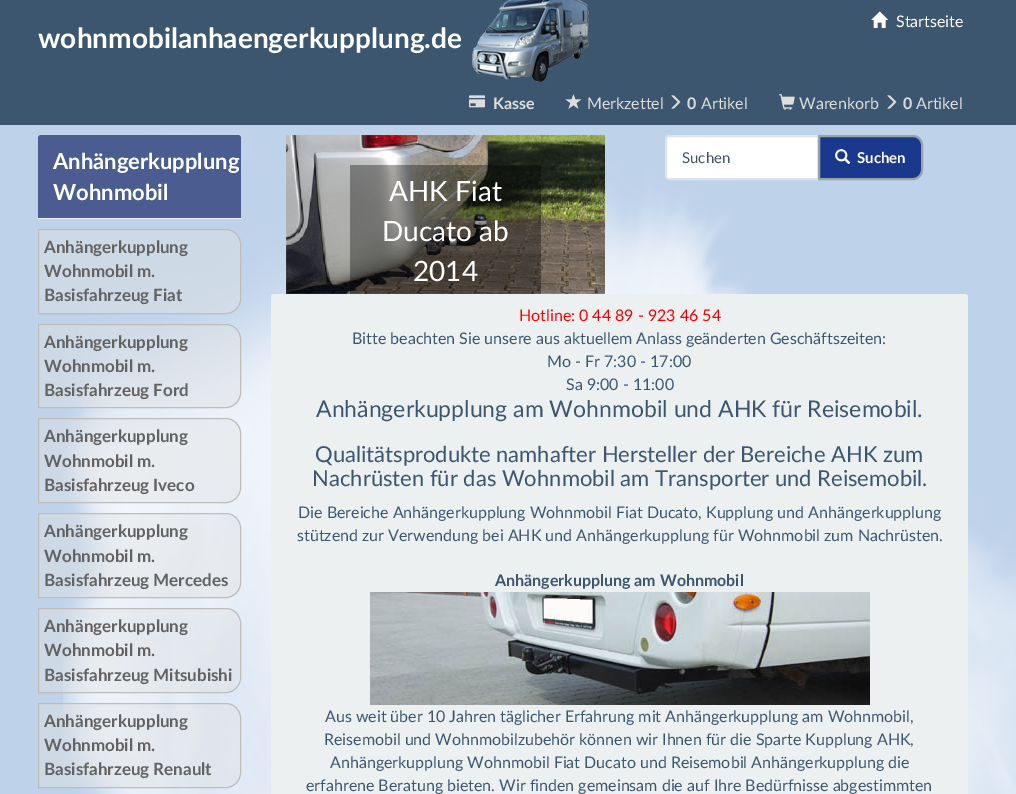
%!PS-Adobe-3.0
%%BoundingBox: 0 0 1016 794
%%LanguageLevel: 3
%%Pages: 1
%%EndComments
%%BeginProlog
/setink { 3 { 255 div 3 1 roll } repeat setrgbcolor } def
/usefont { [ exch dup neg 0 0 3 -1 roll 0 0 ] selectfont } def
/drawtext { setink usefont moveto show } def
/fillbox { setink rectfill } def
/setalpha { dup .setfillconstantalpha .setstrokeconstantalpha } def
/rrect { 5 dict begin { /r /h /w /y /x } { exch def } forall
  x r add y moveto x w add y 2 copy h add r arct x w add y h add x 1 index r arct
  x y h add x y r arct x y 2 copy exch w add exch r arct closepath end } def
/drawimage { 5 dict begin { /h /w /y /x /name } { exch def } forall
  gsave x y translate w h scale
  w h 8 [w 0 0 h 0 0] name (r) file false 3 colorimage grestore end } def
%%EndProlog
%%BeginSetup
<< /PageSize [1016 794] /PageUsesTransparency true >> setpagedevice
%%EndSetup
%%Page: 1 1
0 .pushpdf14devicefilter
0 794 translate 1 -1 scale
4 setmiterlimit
0 0 1016 794 190 210 234 fillbox
(assets/img1.rgb) 63 132 953 662 drawimage
0 0 1016 125 61 86 111 fillbox
(assets/img2.rgb) 871 11 18 17 drawimage
(Startseite) 896 27 /Lato-Regular 16 255 255 255 drawtext
(wohnmobilanhaengerkupplung.de) 38 48 /Lato-Bold 28 255 255 255 drawtext
(assets/img3.rgb) 472 0 117 82 drawimage
(assets/img4.rgb) 469 95 16 13 drawimage
(Kasse) 493 109 /Lato-Bold 16 221 221 221 drawtext
(assets/img5.rgb) 565 94 17 15 drawimage
(Merkzettel) 587 109 /Lato-Regular 16 221 221 221 drawtext
(assets/img6.rgb) 671 95 10 14 drawimage
(0) 687 109 /Lato-Bold 16 221 221 221 drawtext
(Artikel) 701 109 /Lato-Regular 16 221 221 221 drawtext
(assets/img7.rgb) 779 94 16 16 drawimage
(Warenkorb) 799 109 /Lato-Regular 16 221 221 221 drawtext
(assets/img6.rgb) 887 95 10 14 drawimage
(0) 903 109 /Lato-Bold 16 221 221 221 drawtext
(Artikel) 916 109 /Lato-Regular 16 221 221 221 drawtext
75 93 144 setink
41 135 moveto 238 135 lineto 239.5 135 241 136.5 241 138 curveto 241 219 lineto 38 219 lineto 38 138 lineto 38 136.5 39.5 135 41 135 curveto closepath fill
38 218 203 1 236 240 241 fillbox
(Anhängerkupplung) 53 169 /Lato-Bold 22 255 255 255 drawtext
(Wohnmobil) 53 200 /Lato-Bold 22 255 255 255 drawtext
0.44 setalpha
226 226 226 setink
38.5 229.5 moveto 226 229.5 lineto 234 229.5 240.5 236 240.5 244 curveto 240.5 299 lineto 240.5 307 234 313.5 226 313.5 curveto 38.5 313.5 lineto closepath fill
1 setalpha
191 189 188 setink
38.5 229.5 moveto 226 229.5 lineto 234 229.5 240.5 236 240.5 244 curveto 240.5 299 lineto 240.5 307 234 313.5 226 313.5 curveto 38.5 313.5 lineto closepath stroke
(Anhängerkupplung) 44 253 /Lato-Bold 17 99 98 98 drawtext
(Wohnmobil m.) 44 277 /Lato-Bold 17 99 98 98 drawtext
(Basisfahrzeug Fiat) 44 301 /Lato-Bold 17 99 98 98 drawtext
0.44 setalpha
226 226 226 setink
38.5 324.5 moveto 226 324.5 lineto 234 324.5 240.5 331 240.5 339 curveto 240.5 393 lineto 240.5 401 234 407.5 226 407.5 curveto 38.5 407.5 lineto closepath fill
1 setalpha
191 189 188 setink
38.5 324.5 moveto 226 324.5 lineto 234 324.5 240.5 331 240.5 339 curveto 240.5 393 lineto 240.5 401 234 407.5 226 407.5 curveto 38.5 407.5 lineto closepath stroke
(Anhängerkupplung) 44 348 /Lato-Bold 17 99 98 98 drawtext
(Wohnmobil m.) 44 372 /Lato-Bold 17 99 98 98 drawtext
(Basisfahrzeug Ford) 44 396 /Lato-Bold 17 99 98 98 drawtext
0.44 setalpha
226 226 226 setink
38.5 418.5 moveto 226 418.5 lineto 234 418.5 240.5 425 240.5 433 curveto 240.5 488 lineto 240.5 496 234 502.5 226 502.5 curveto 38.5 502.5 lineto closepath fill
1 setalpha
191 189 188 setink
38.5 418.5 moveto 226 418.5 lineto 234 418.5 240.5 425 240.5 433 curveto 240.5 488 lineto 240.5 496 234 502.5 226 502.5 curveto 38.5 502.5 lineto closepath stroke
(Anhängerkupplung) 44 442 /Lato-Bold 17 99 98 98 drawtext
(Wohnmobil m.) 44 467 /Lato-Bold 17 99 98 98 drawtext
(Basisfahrzeug Iveco) 44 491 /Lato-Bold 17 99 98 98 drawtext
0.44 setalpha
226 226 226 setink
38.5 513.5 moveto 226 513.5 lineto 234 513.5 240.5 520 240.5 528 curveto 240.5 583 lineto 240.5 591 234 597.5 226 597.5 curveto 38.5 597.5 lineto closepath fill
1 setalpha
191 189 188 setink
38.5 513.5 moveto 226 513.5 lineto 234 513.5 240.5 520 240.5 528 curveto 240.5 583 lineto 240.5 591 234 597.5 226 597.5 curveto 38.5 597.5 lineto closepath stroke
(Anhängerkupplung) 44 537 /Lato-Bold 17 99 98 98 drawtext
(Wohnmobil m.) 44 562 /Lato-Bold 17 99 98 98 drawtext
(Basisfahrzeug Mercedes) 44 586 /Lato-Bold 17 99 98 98 drawtext
0.44 setalpha
226 226 226 setink
38.5 608.5 moveto 226 608.5 lineto 234 608.5 240.5 615 240.5 623 curveto 240.5 678 lineto 240.5 686 234 692.5 226 692.5 curveto 38.5 692.5 lineto closepath fill
1 setalpha
191 189 188 setink
38.5 608.5 moveto 226 608.5 lineto 234 608.5 240.5 615 240.5 623 curveto 240.5 678 lineto 240.5 686 234 692.5 226 692.5 curveto 38.5 692.5 lineto closepath stroke
(Anhängerkupplung) 44 632 /Lato-Bold 17 99 98 98 drawtext
(Wohnmobil m.) 44 656 /Lato-Bold 17 99 98 98 drawtext
(Basisfahrzeug Mitsubishi) 44 681 /Lato-Bold 17 99 98 98 drawtext
0.44 setalpha
226 226 226 setink
38.5 703.5 moveto 226 703.5 lineto 234 703.5 240.5 710 240.5 718 curveto 240.5 773 lineto 240.5 781 234 787.5 226 787.5 curveto 38.5 787.5 lineto closepath fill
1 setalpha
191 189 188 setink
38.5 703.5 moveto 226 703.5 lineto 234 703.5 240.5 710 240.5 718 curveto 240.5 773 lineto 240.5 781 234 787.5 226 787.5 curveto 38.5 787.5 lineto closepath stroke
(Anhängerkupplung) 44 727 /Lato-Bold 17 99 98 98 drawtext
(Wohnmobil m.) 44 751 /Lato-Bold 17 99 98 98 drawtext
(Basisfahrzeug Renault) 44 775 /Lato-Bold 17 99 98 98 drawtext
255 255 255 setink
669 136 moveto 818 136 lineto 818 179 lineto 669 179 lineto 667.5 179 666 177.5 666 176 curveto 666 139 lineto 666 137.5 667.5 136 669 136 curveto closepath gsave fill grestore
220 228 236 setink
2 setlinewidth
stroke
(Suchen) 682 163 /Lato-Regular 15 61 86 111 drawtext
26 56 142 setink
819 136 moveto 913 136 lineto 918 136 922 140 922 145 curveto 922 170 lineto 922 175 918 179 913 179 curveto 819 179 lineto closepath gsave fill grestore
149 165 166 setink
stroke
(assets/img8.rgb) 835 149 16 15 drawimage
(Suchen) 857 163 /Lato-Bold 15 255 255 255 drawtext
(assets/img9.rgb) 286 135 319 159 drawimage
0.35 setalpha
350 165 191 129 0 0 0 fillbox
1 setalpha
(AHK Fiat) 389 201 /Lato-Regular 28 255 255 255 drawtext
(Ducato ab) 382 241 /Lato-Regular 28 255 255 255 drawtext
(2014) 413 281 /Lato-Regular 28 255 255 255 drawtext
236 240 241 setink
271 294 697 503 3 rrect fill
(Hotline: 0 44 89 - 923 46 54) 519 321 /Lato-Regular 16 255 0 0 drawtext
(Bitte beachten Sie unsere aus aktuellem Anlass geänderten Geschäftszeiten:) 352 344 /Lato-Regular 16 61 86 111 drawtext
(Mo - Fr 7:30 - 17:00) 547 367 /Lato-Regular 16 61 86 111 drawtext
(Sa 9:00 - 11:00) 566 390 /Lato-Regular 16 61 86 111 drawtext
(Anhängerkupplung am Wohnmobil und AHK für Reisemobil.) 316 417 /Lato-Regular 23 61 86 111 drawtext
(Qualitätsprodukte namhafter Hersteller der Bereiche AHK zum) 315 462 /Lato-Regular 22 61 86 111 drawtext
(Nachrüsten für das Wohnmobil am Transporter und Reisemobil.) 312 486 /Lato-Regular 22 61 86 111 drawtext
(Die Bereiche Anhängerkupplung Wohnmobil Fiat Ducato, Kupplung und Anhängerkupplung) 298 518 /Lato-Regular 16 61 86 111 drawtext
(stützend zur Verwendung bei AHK und Anhängerkupplung für Wohnmobil zum Nachrüsten.) 297 541 /Lato-Regular 16 61 86 111 drawtext
(Anhängerkupplung am Wohnmobil) 495 586 /Lato-Bold 16 61 86 111 drawtext
(assets/img10.rgb) 370 592 500 113 drawimage
(Aus weit über 10 Jahren täglicher Erfahrung mit Anhängerkupplung am Wohnmobil,) 325 722 /Lato-Regular 16 61 86 111 drawtext
(Reisemobil und Wohnmobilzubehör können wir Ihnen für die Sparte Kupplung AHK,) 324 745 /Lato-Regular 16 61 86 111 drawtext
(Anhängerkupplung Wohnmobil Fiat Ducato und Reisemobil Anhängerkupplung die) 330 768 /Lato-Regular 16 61 86 111 drawtext
(erfahrene Beratung bieten. Wir finden gemeinsam die auf Ihre Bedürfnisse abgestimmten) 306 791 /Lato-Regular 16 61 86 111 drawtext
.poppdf14devicefilter showpage
%%EOF
